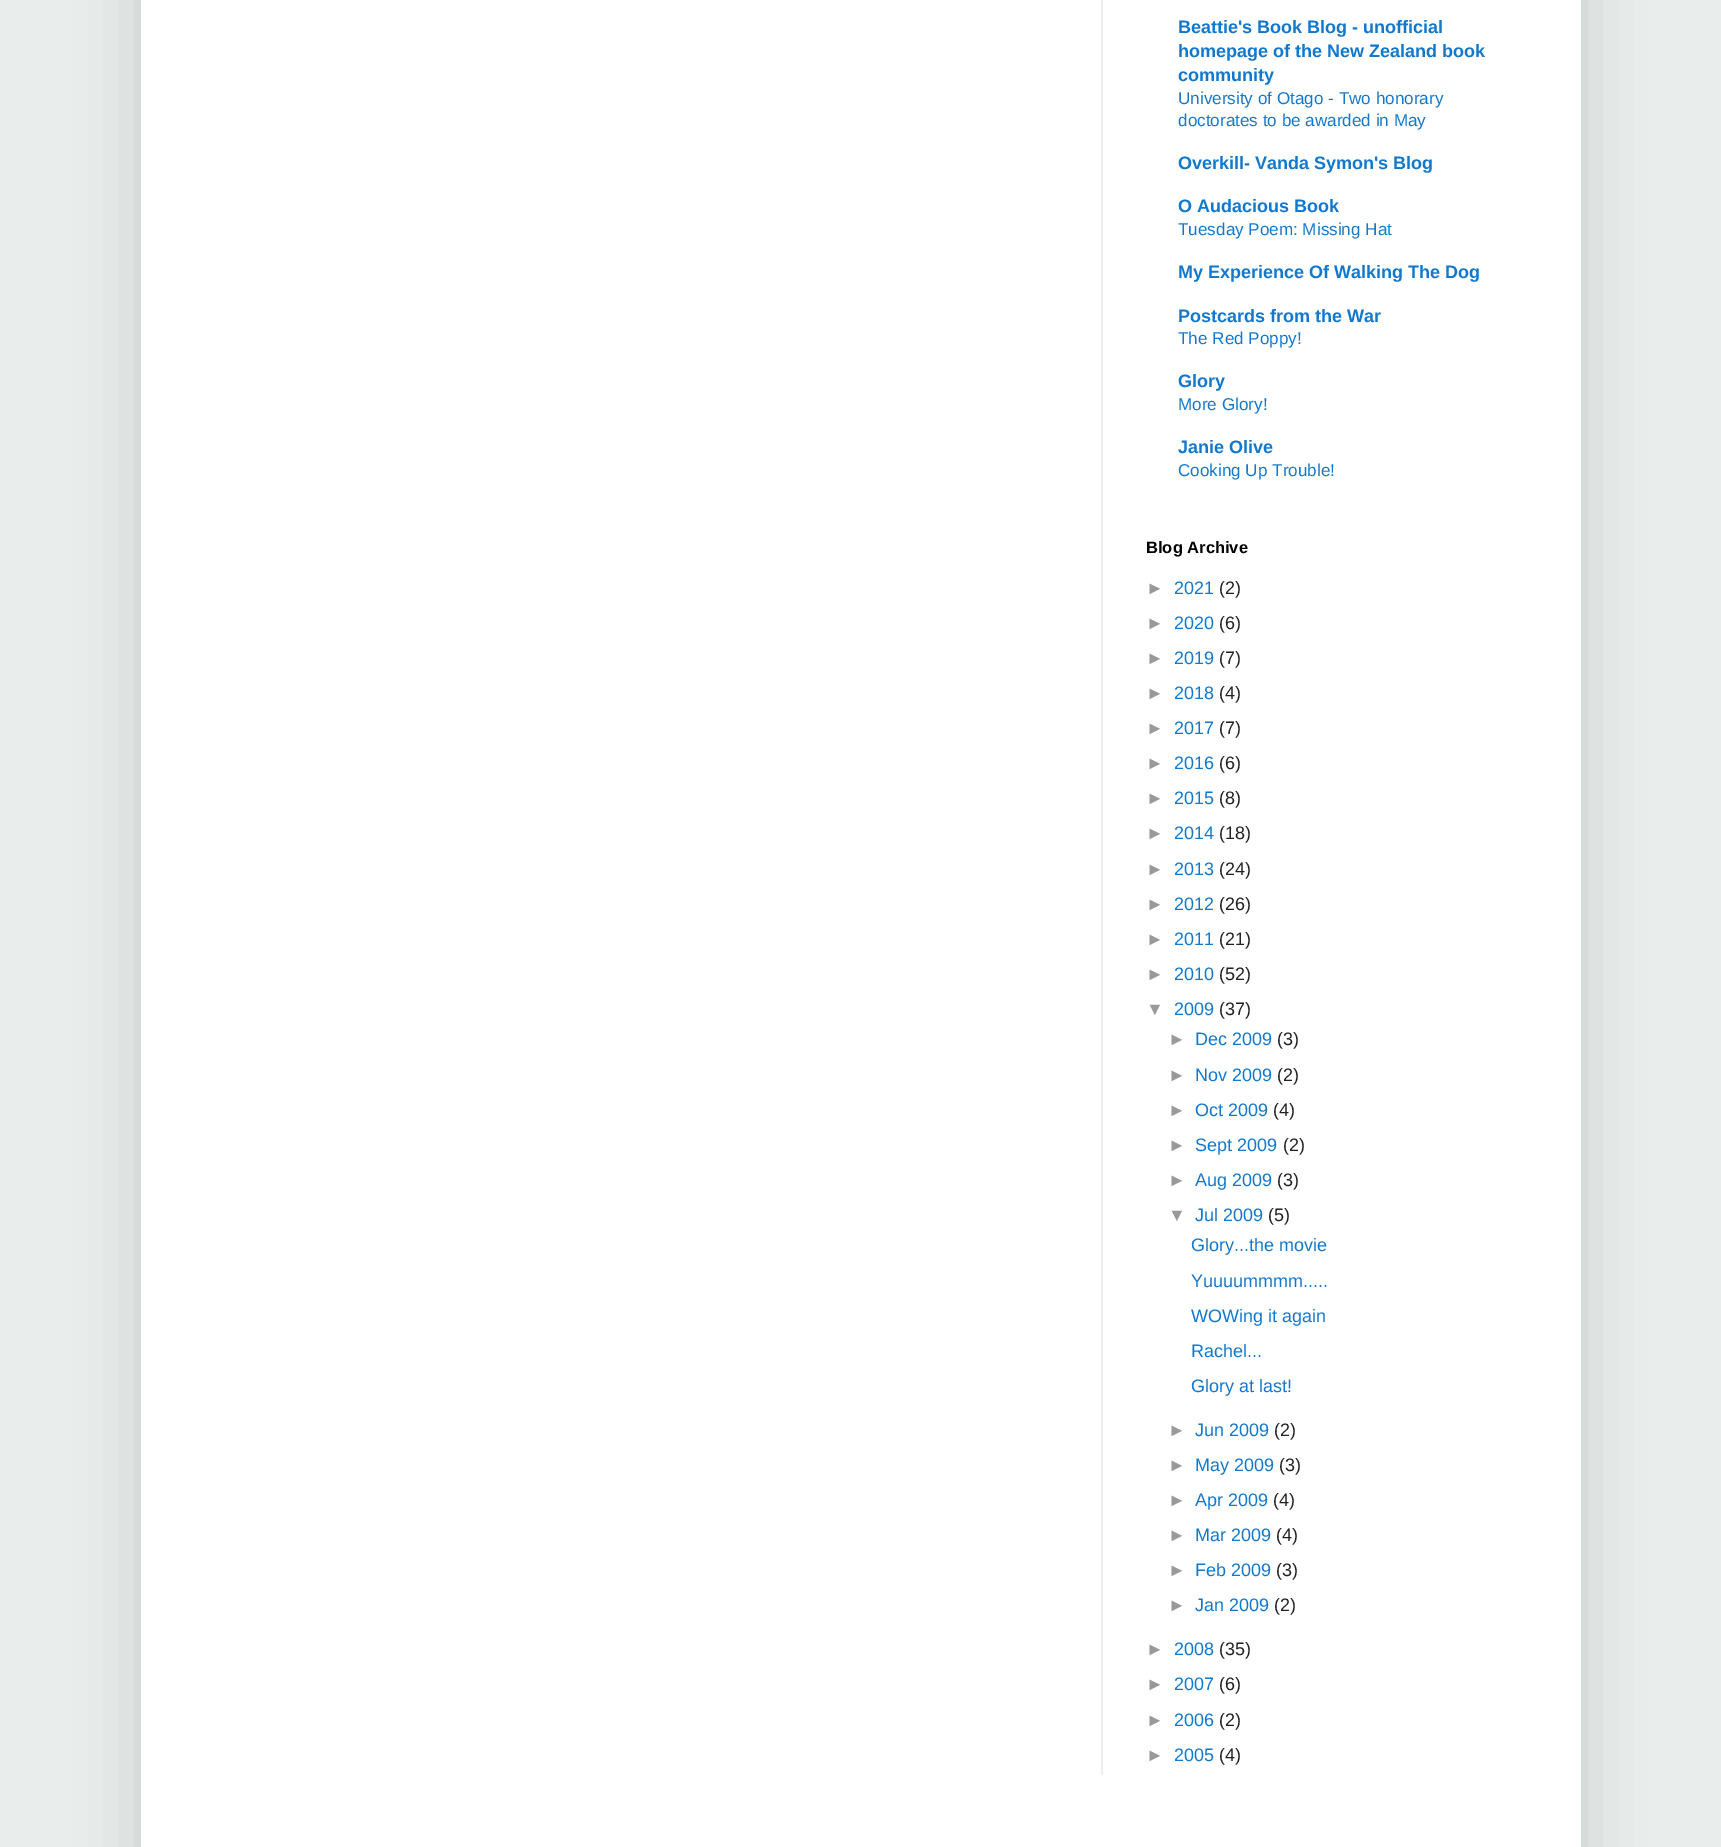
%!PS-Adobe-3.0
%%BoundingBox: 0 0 1721 1847
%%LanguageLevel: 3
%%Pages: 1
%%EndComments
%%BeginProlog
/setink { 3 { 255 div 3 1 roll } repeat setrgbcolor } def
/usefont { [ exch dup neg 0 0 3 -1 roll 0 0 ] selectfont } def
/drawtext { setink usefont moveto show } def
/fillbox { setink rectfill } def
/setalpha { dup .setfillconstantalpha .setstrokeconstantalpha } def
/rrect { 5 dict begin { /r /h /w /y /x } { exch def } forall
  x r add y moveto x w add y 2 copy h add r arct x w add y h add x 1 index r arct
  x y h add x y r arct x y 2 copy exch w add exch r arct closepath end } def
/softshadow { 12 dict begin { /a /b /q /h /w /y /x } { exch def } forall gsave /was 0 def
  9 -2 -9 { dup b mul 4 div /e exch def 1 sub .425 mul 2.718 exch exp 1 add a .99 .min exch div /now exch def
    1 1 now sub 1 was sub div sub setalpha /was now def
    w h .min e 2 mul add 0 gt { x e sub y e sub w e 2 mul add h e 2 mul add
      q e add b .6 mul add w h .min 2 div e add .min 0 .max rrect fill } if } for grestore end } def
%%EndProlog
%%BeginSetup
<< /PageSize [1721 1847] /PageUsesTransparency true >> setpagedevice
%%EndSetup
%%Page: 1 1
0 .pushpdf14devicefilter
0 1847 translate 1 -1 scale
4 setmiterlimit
0 0 1721 1847 233 237 236 fillbox
0 0 0 setink
141 -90 1440 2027 0 30 0.15 softshadow
141 0 1440 1847 255 255 255 fillbox
1101 0 2 1775 238 238 238 fillbox
(Beattie's Book Blog - unofficial) 1178 33 /LiberationSans-Bold 18 17 120 204 drawtext
(homepage of the New Zealand book) 1178 57 /LiberationSans-Bold 18 17 120 204 drawtext
(community) 1178 81 /LiberationSans-Bold 18 17 120 204 drawtext
(University of Otago - Two honorary) 1178 104 /LiberationSans-Regular 17.1 17 120 204 drawtext
(doctorates to be awarded in May) 1178 126 /LiberationSans-Regular 17.1 17 120 204 drawtext
(Overkill- Vanda Symon's Blog) 1178 169 /LiberationSans-Bold 18 17 120 204 drawtext
(O Audacious Book) 1178 212 /LiberationSans-Bold 18 17 120 204 drawtext
(Tuesday Poem: Missing Hat) 1178 235 /LiberationSans-Regular 17.1 17 120 204 drawtext
(My Experience Of Walking The Dog) 1178 278 /LiberationSans-Bold 18 17 120 204 drawtext
(Postcards from the War) 1178 322 /LiberationSans-Bold 18 17 120 204 drawtext
(The Red Poppy!) 1178 344 /LiberationSans-Regular 17.1 17 120 204 drawtext
(Glory) 1178 387 /LiberationSans-Bold 18 17 120 204 drawtext
(More Glory!) 1178 410 /LiberationSans-Regular 17.1 17 120 204 drawtext
(Janie Olive) 1178 453 /LiberationSans-Bold 18 17 120 204 drawtext
(Cooking Up Trouble!) 1178 476 /LiberationSans-Regular 17.1 17 120 204 drawtext
(Blog Archive) 1146 553 /LiberationSans-Bold 16.5 0 0 0 drawtext
(►) 1146 594 /LiberationSans-Regular 18 153 153 153 drawtext
(2021) 1174 594 /LiberationSans-Regular 18 17 120 204 drawtext
(\(2\)) 1219 594 /LiberationSans-Regular 18 34 34 34 drawtext
(►) 1146 629 /LiberationSans-Regular 18 153 153 153 drawtext
(2020) 1174 629 /LiberationSans-Regular 18 17 120 204 drawtext
(\(6\)) 1219 629 /LiberationSans-Regular 18 34 34 34 drawtext
(►) 1146 664 /LiberationSans-Regular 18 153 153 153 drawtext
(2019) 1174 664 /LiberationSans-Regular 18 17 120 204 drawtext
(\(7\)) 1219 664 /LiberationSans-Regular 18 34 34 34 drawtext
(►) 1146 699 /LiberationSans-Regular 18 153 153 153 drawtext
(2018) 1174 699 /LiberationSans-Regular 18 17 120 204 drawtext
(\(4\)) 1219 699 /LiberationSans-Regular 18 34 34 34 drawtext
(►) 1146 734 /LiberationSans-Regular 18 153 153 153 drawtext
(2017) 1174 734 /LiberationSans-Regular 18 17 120 204 drawtext
(\(7\)) 1219 734 /LiberationSans-Regular 18 34 34 34 drawtext
(►) 1146 769 /LiberationSans-Regular 18 153 153 153 drawtext
(2016) 1174 769 /LiberationSans-Regular 18 17 120 204 drawtext
(\(6\)) 1219 769 /LiberationSans-Regular 18 34 34 34 drawtext
(►) 1146 804 /LiberationSans-Regular 18 153 153 153 drawtext
(2015) 1174 804 /LiberationSans-Regular 18 17 120 204 drawtext
(\(8\)) 1219 804 /LiberationSans-Regular 18 34 34 34 drawtext
(►) 1146 839 /LiberationSans-Regular 18 153 153 153 drawtext
(2014) 1174 839 /LiberationSans-Regular 18 17 120 204 drawtext
(\(18\)) 1219 839 /LiberationSans-Regular 18 34 34 34 drawtext
(►) 1146 875 /LiberationSans-Regular 18 153 153 153 drawtext
(2013) 1174 875 /LiberationSans-Regular 18 17 120 204 drawtext
(\(24\)) 1219 875 /LiberationSans-Regular 18 34 34 34 drawtext
(►) 1146 910 /LiberationSans-Regular 18 153 153 153 drawtext
(2012) 1174 910 /LiberationSans-Regular 18 17 120 204 drawtext
(\(26\)) 1219 910 /LiberationSans-Regular 18 34 34 34 drawtext
(►) 1146 945 /LiberationSans-Regular 18 153 153 153 drawtext
(2011) 1174 945 /LiberationSans-Regular 18 17 120 204 drawtext
(\(21\)) 1219 945 /LiberationSans-Regular 18 34 34 34 drawtext
(►) 1146 980 /LiberationSans-Regular 18 153 153 153 drawtext
(2010) 1174 980 /LiberationSans-Regular 18 17 120 204 drawtext
(\(52\)) 1219 980 /LiberationSans-Regular 18 34 34 34 drawtext
(▼) 1146 1015 /LiberationSans-Regular 18 153 153 153 drawtext
(2009) 1174 1015 /LiberationSans-Regular 18 17 120 204 drawtext
(\(37\)) 1219 1015 /LiberationSans-Regular 18 34 34 34 drawtext
(►) 1168 1045 /LiberationSans-Regular 18 153 153 153 drawtext
(Dec 2009) 1195 1045 /LiberationSans-Regular 18 17 120 204 drawtext
(\(3\)) 1277 1045 /LiberationSans-Regular 18 34 34 34 drawtext
(►) 1168 1081 /LiberationSans-Regular 18 153 153 153 drawtext
(Nov 2009) 1195 1081 /LiberationSans-Regular 18 17 120 204 drawtext
(\(2\)) 1277 1081 /LiberationSans-Regular 18 34 34 34 drawtext
(►) 1168 1116 /LiberationSans-Regular 18 153 153 153 drawtext
(Oct 2009) 1195 1116 /LiberationSans-Regular 18 17 120 204 drawtext
(\(4\)) 1273 1116 /LiberationSans-Regular 18 34 34 34 drawtext
(►) 1168 1151 /LiberationSans-Regular 18 153 153 153 drawtext
(Sept 2009) 1195 1151 /LiberationSans-Regular 18 17 120 204 drawtext
(\(2\)) 1283 1151 /LiberationSans-Regular 18 34 34 34 drawtext
(►) 1168 1186 /LiberationSans-Regular 18 153 153 153 drawtext
(Aug 2009) 1195 1186 /LiberationSans-Regular 18 17 120 204 drawtext
(\(3\)) 1277 1186 /LiberationSans-Regular 18 34 34 34 drawtext
(▼) 1168 1221 /LiberationSans-Regular 18 153 153 153 drawtext
(Jul 2009) 1195 1221 /LiberationSans-Regular 18 17 120 204 drawtext
(\(5\)) 1268 1221 /LiberationSans-Regular 18 34 34 34 drawtext
(Glory...the movie) 1191 1251 /LiberationSans-Regular 18 17 120 204 drawtext
(Yuuuummmm.....) 1191 1287 /LiberationSans-Regular 18 17 120 204 drawtext
(WOWing it again) 1191 1322 /LiberationSans-Regular 18 17 120 204 drawtext
(Rachel...) 1191 1357 /LiberationSans-Regular 18 17 120 204 drawtext
(Glory at last!) 1191 1392 /LiberationSans-Regular 18 17 120 204 drawtext
(►) 1168 1436 /LiberationSans-Regular 18 153 153 153 drawtext
(Jun 2009) 1195 1436 /LiberationSans-Regular 18 17 120 204 drawtext
(\(2\)) 1274 1436 /LiberationSans-Regular 18 34 34 34 drawtext
(►) 1168 1471 /LiberationSans-Regular 18 153 153 153 drawtext
(May 2009) 1195 1471 /LiberationSans-Regular 18 17 120 204 drawtext
(\(3\)) 1279 1471 /LiberationSans-Regular 18 34 34 34 drawtext
(►) 1168 1506 /LiberationSans-Regular 18 153 153 153 drawtext
(Apr 2009) 1195 1506 /LiberationSans-Regular 18 17 120 204 drawtext
(\(4\)) 1273 1506 /LiberationSans-Regular 18 34 34 34 drawtext
(►) 1168 1541 /LiberationSans-Regular 18 153 153 153 drawtext
(Mar 2009) 1195 1541 /LiberationSans-Regular 18 17 120 204 drawtext
(\(4\)) 1276 1541 /LiberationSans-Regular 18 34 34 34 drawtext
(►) 1168 1576 /LiberationSans-Regular 18 153 153 153 drawtext
(Feb 2009) 1195 1576 /LiberationSans-Regular 18 17 120 204 drawtext
(\(3\)) 1276 1576 /LiberationSans-Regular 18 34 34 34 drawtext
(►) 1168 1611 /LiberationSans-Regular 18 153 153 153 drawtext
(Jan 2009) 1195 1611 /LiberationSans-Regular 18 17 120 204 drawtext
(\(2\)) 1274 1611 /LiberationSans-Regular 18 34 34 34 drawtext
(►) 1146 1655 /LiberationSans-Regular 18 153 153 153 drawtext
(2008) 1174 1655 /LiberationSans-Regular 18 17 120 204 drawtext
(\(35\)) 1219 1655 /LiberationSans-Regular 18 34 34 34 drawtext
(►) 1146 1690 /LiberationSans-Regular 18 153 153 153 drawtext
(2007) 1174 1690 /LiberationSans-Regular 18 17 120 204 drawtext
(\(6\)) 1219 1690 /LiberationSans-Regular 18 34 34 34 drawtext
(►) 1146 1726 /LiberationSans-Regular 18 153 153 153 drawtext
(2006) 1174 1726 /LiberationSans-Regular 18 17 120 204 drawtext
(\(2\)) 1219 1726 /LiberationSans-Regular 18 34 34 34 drawtext
(►) 1146 1761 /LiberationSans-Regular 18 153 153 153 drawtext
(2005) 1174 1761 /LiberationSans-Regular 18 17 120 204 drawtext
(\(4\)) 1219 1761 /LiberationSans-Regular 18 34 34 34 drawtext
.poppdf14devicefilter showpage
%%EOF
